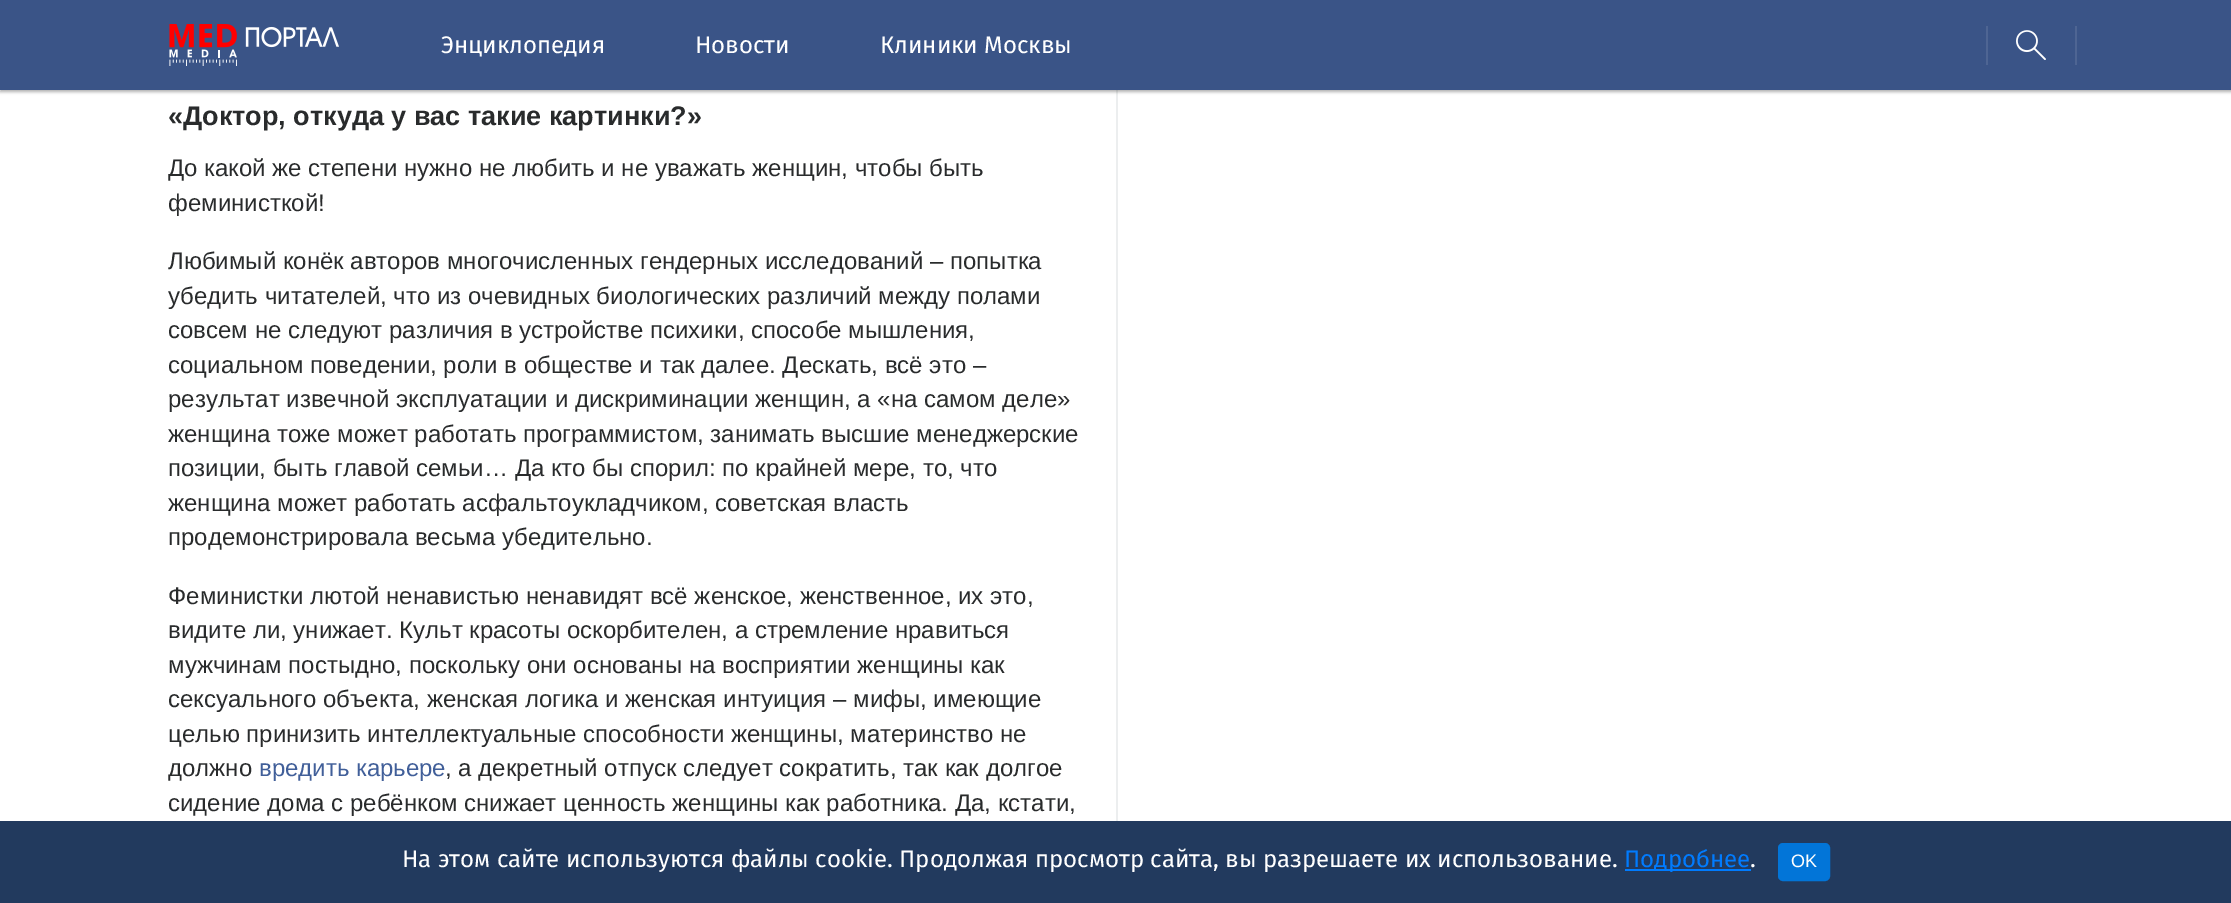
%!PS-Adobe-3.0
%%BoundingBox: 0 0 2231 903
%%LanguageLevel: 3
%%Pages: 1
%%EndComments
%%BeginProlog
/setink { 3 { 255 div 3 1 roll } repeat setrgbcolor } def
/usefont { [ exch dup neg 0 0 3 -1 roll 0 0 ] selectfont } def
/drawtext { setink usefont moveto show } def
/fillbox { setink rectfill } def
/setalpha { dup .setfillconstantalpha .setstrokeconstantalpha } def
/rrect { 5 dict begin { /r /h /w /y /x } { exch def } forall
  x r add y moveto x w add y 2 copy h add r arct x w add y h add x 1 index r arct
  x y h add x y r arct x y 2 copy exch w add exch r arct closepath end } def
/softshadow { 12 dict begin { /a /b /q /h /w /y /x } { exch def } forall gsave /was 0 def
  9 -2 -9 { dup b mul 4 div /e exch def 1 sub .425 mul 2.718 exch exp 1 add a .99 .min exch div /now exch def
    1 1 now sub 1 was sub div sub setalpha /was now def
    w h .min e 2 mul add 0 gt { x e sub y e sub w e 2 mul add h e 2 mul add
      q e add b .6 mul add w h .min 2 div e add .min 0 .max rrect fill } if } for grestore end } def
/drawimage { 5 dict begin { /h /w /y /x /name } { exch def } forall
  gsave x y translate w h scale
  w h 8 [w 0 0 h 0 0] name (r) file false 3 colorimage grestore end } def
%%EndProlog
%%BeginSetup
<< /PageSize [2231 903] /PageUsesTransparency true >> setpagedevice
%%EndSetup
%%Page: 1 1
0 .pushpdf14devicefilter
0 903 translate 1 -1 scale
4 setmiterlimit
0 0 2231 903 255 255 255 fillbox
1116 90 2 731 236 238 239 fillbox
0 0 0 setink
0 2 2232 90 0 1.5 0.3 softshadow
0 0 2231 90 58 84 135 fillbox
(assets/img1.rgb) 169 24 170 42 drawimage
(Энциклопедия) 441 53 /FiraSans-Regular 24 255 255 255 drawtext
(Новости) 695 53 /FiraSans-Regular 24 255 255 255 drawtext
(Клиники Москвы) 880 53 /FiraSans-Regular 24 255 255 255 drawtext
(assets/img2.rgb) 2016 30 30 30 drawimage
1986 26 2 39 78 101 147 fillbox
2075 26 2 39 78 101 147 fillbox
(«Доктор, откуда у вас такие картинки?») 168 125 /LiberationSans-Bold 27 41 43 44 drawtext
(До какой же степени нужно не любить и не уважать женщин, чтобы быть) 168 176 /LiberationSans-Regular 24 41 43 44 drawtext
(феминисткой!) 168 211 /LiberationSans-Regular 24 41 43 44 drawtext
(Любимый конёк авторов многочисленных гендерных исследований – попытка) 168 269 /LiberationSans-Regular 24 41 43 44 drawtext
(убедить читателей, что из очевидных биологических различий между полами) 168 304 /LiberationSans-Regular 24 41 43 44 drawtext
(совсем не следуют различия в устройстве психики, способе мышления,) 168 338 /LiberationSans-Regular 24 41 43 44 drawtext
(социальном поведении, роли в обществе и так далее. Дескать, всё это –) 168 373 /LiberationSans-Regular 24 41 43 44 drawtext
(результат извечной эксплуатации и дискриминации женщин, а «на самом деле») 168 407 /LiberationSans-Regular 24 41 43 44 drawtext
(женщина тоже может работать программистом, занимать высшие менеджерские) 168 442 /LiberationSans-Regular 24 41 43 44 drawtext
(позиции, быть главой семьи… Да кто бы спорил: по крайней мере, то, что) 168 476 /LiberationSans-Regular 24 41 43 44 drawtext
(женщина может работать асфальтоукладчиком, советская власть) 168 511 /LiberationSans-Regular 24 41 43 44 drawtext
(продемонстрировала весьма убедительно.) 168 545 /LiberationSans-Regular 24 41 43 44 drawtext
(Феминистки лютой ненавистью ненавидят всё женское, женственное, их это,) 168 604 /LiberationSans-Regular 24 41 43 44 drawtext
(видите ли, унижает. Культ красоты оскорбителен, а стремление нравиться) 168 638 /LiberationSans-Regular 24 41 43 44 drawtext
(мужчинам постыдно, поскольку они основаны на восприятии женщины как) 168 673 /LiberationSans-Regular 24 41 43 44 drawtext
(сексуального объекта, женская логика и женская интуиция – мифы, имеющие) 168 707 /LiberationSans-Regular 24 41 43 44 drawtext
(целью принизить интеллектуальные способности женщины, материнство не) 168 742 /LiberationSans-Regular 24 41 43 44 drawtext
(должно) 168 776 /LiberationSans-Regular 24 41 43 44 drawtext
(вредить карьере) 259 776 /LiberationSans-Regular 24 65 95 153 drawtext
(, а декретный отпуск следует сократить, так как долгое) 445 776 /LiberationSans-Regular 24 41 43 44 drawtext
(сидение дома с ребёнком снижает ценность женщины как работника. Да, кстати,) 168 811 /LiberationSans-Regular 24 41 43 44 drawtext
0 821 2231 82 34 58 94 fillbox
(На этом сайте используются файлы cookie. Продолжая просмотр сайта, вы разрешаете их использование.) 402 867 /FiraSans-Regular 24 255 255 255 drawtext
1625 869 126 2 0 123 255 fillbox
(Подробнее) 1624 867 /FiraSans-Regular 24 0 123 255 drawtext
(.) 1750 867 /FiraSans-Regular 24 255 255 255 drawtext
2 117 216 setink
1779 844 50 36 4 rrect gsave fill grestore
2 setlinewidth
stroke
(OK) 1791 867 /LiberationSans-Regular 18 255 255 255 drawtext
.poppdf14devicefilter showpage
%%EOF
